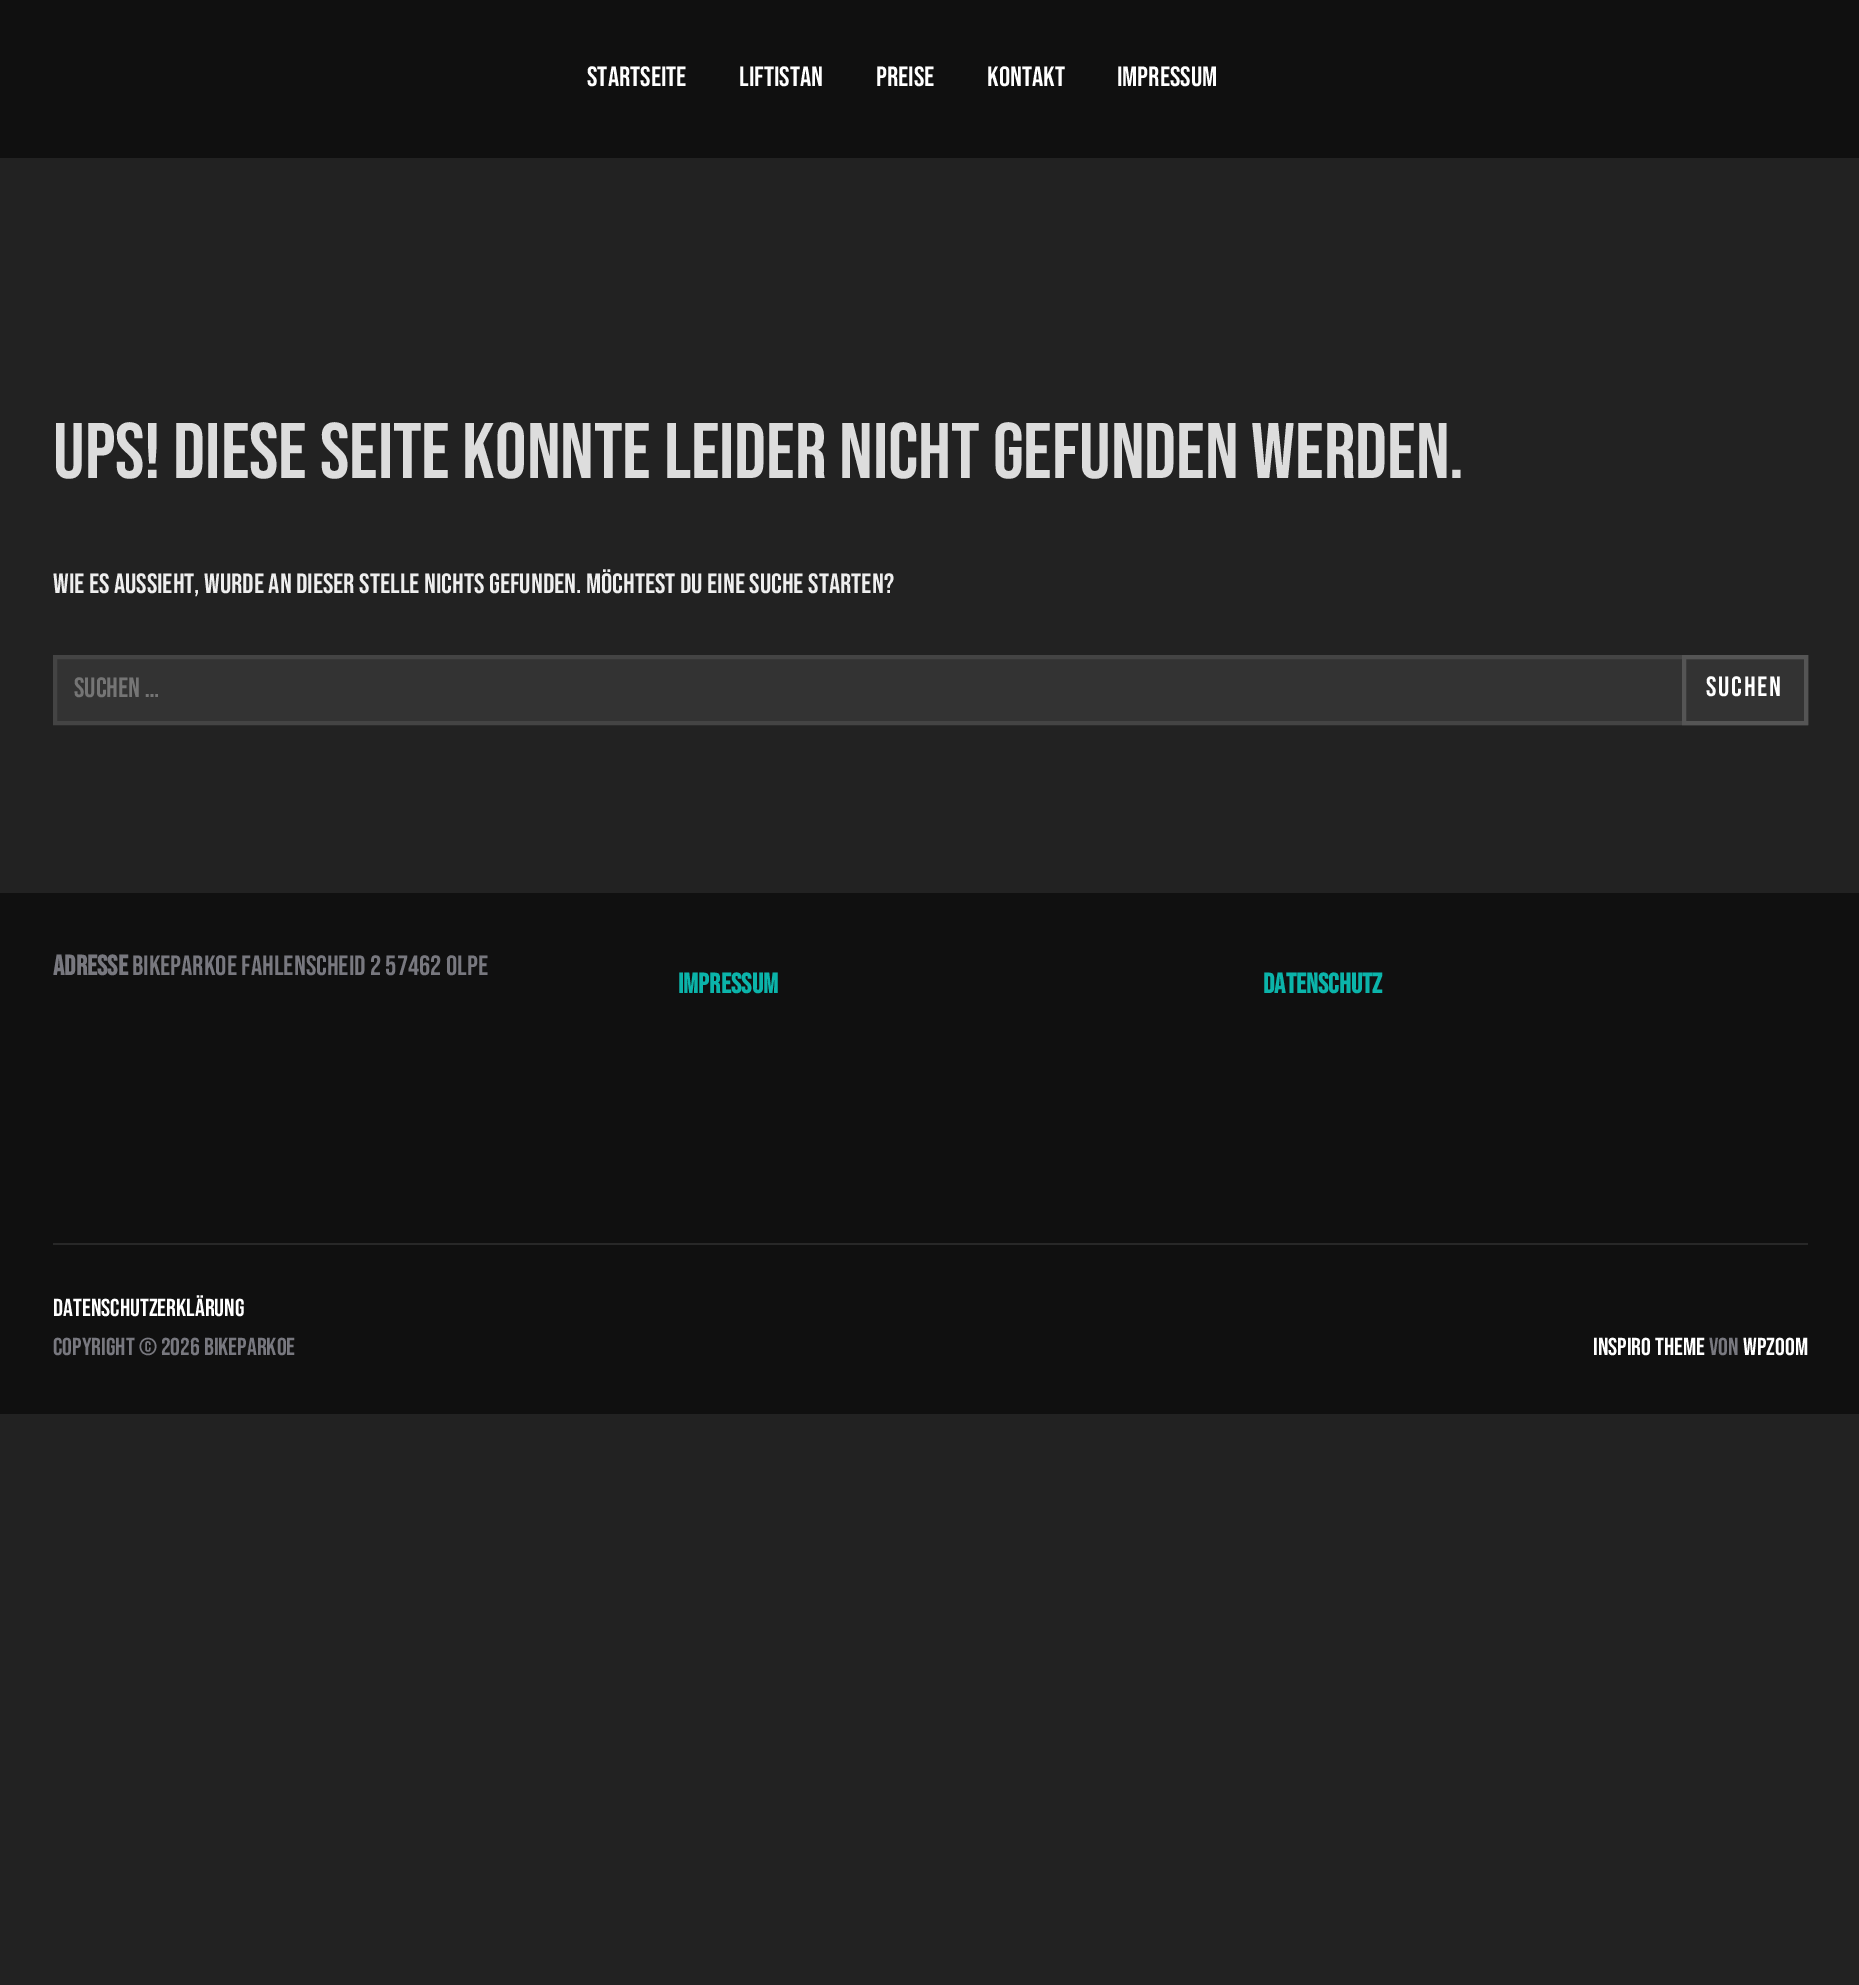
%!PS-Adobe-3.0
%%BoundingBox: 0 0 1859 1985
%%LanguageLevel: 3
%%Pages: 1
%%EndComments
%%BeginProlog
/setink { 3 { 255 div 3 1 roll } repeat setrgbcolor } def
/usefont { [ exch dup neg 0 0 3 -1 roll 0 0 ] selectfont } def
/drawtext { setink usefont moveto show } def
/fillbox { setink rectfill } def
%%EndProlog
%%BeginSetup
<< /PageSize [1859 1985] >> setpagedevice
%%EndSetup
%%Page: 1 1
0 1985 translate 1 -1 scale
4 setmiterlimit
0 0 1859 1985 34 34 34 fillbox
0 0 1859 158 16 16 16 fillbox
(Startseite) 587 86 /BebasNeue-Regular 28 255 255 255 drawtext
(Liftistan) 739 86 /BebasNeue-Regular 28 255 255 255 drawtext
(PREISE) 876 86 /BebasNeue-Regular 28 255 255 255 drawtext
(Kontakt) 987 86 /BebasNeue-Regular 28 255 255 255 drawtext
(Impressum) 1117 86 /BebasNeue-Regular 28 255 255 255 drawtext
(Ups! Diese Seite konnte leider nicht gefunden werden.) 53 478 /BebasNeue-Regular 78.75 221 221 221 drawtext
(Wie es aussieht, wurde an dieser Stelle nichts gefunden. Möchtest du eine Suche starten?) 53 593 /BebasNeue-Regular 28 238 238 238 drawtext
51 51 51 setink
55 657 moveto 1806 657 lineto 1806 723 lineto 55 723 lineto closepath gsave fill grestore
68 68 68 setink
4 setlinewidth
stroke
(Suchen …) 74 697 /BebasNeue-Regular 28 117 117 117 drawtext
85 85 85 setink
1684 657 122 66 rectstroke
255 255 255 setink
1706 696 moveto 1.75 0 (SUCHEN) ashow
0 893 1859 521 16 16 16 fillbox
(Adresse) 53 975 /BebasNeue-Bold 28 120 120 127 drawtext
(bikeparkOE Fahlenscheid 2 57462 Olpe) 132 975 /BebasNeue-Regular 28 120 120 127 drawtext
(Impressum) 678 993 /BebasNeue-Bold 28 11 180 170 drawtext
(Datenschutz) 1263 993 /BebasNeue-Bold 28 11 180 170 drawtext
53 1243 1755 2 40 40 40 fillbox
(Datenschutzerklärung) 53 1316 /BebasNeue-Regular 24.5 255 255 255 drawtext
(Copyright © 2026 bikeparkOE) 53 1355 /BebasNeue-Regular 24.5 120 120 127 drawtext
(Inspiro Theme) 1593 1355 /BebasNeue-Regular 24.5 255 255 255 drawtext
(von) 1709 1355 /BebasNeue-Regular 24.5 120 120 127 drawtext
(WPZOOM) 1743 1355 /BebasNeue-Regular 24.5 255 255 255 drawtext
showpage
%%EOF
